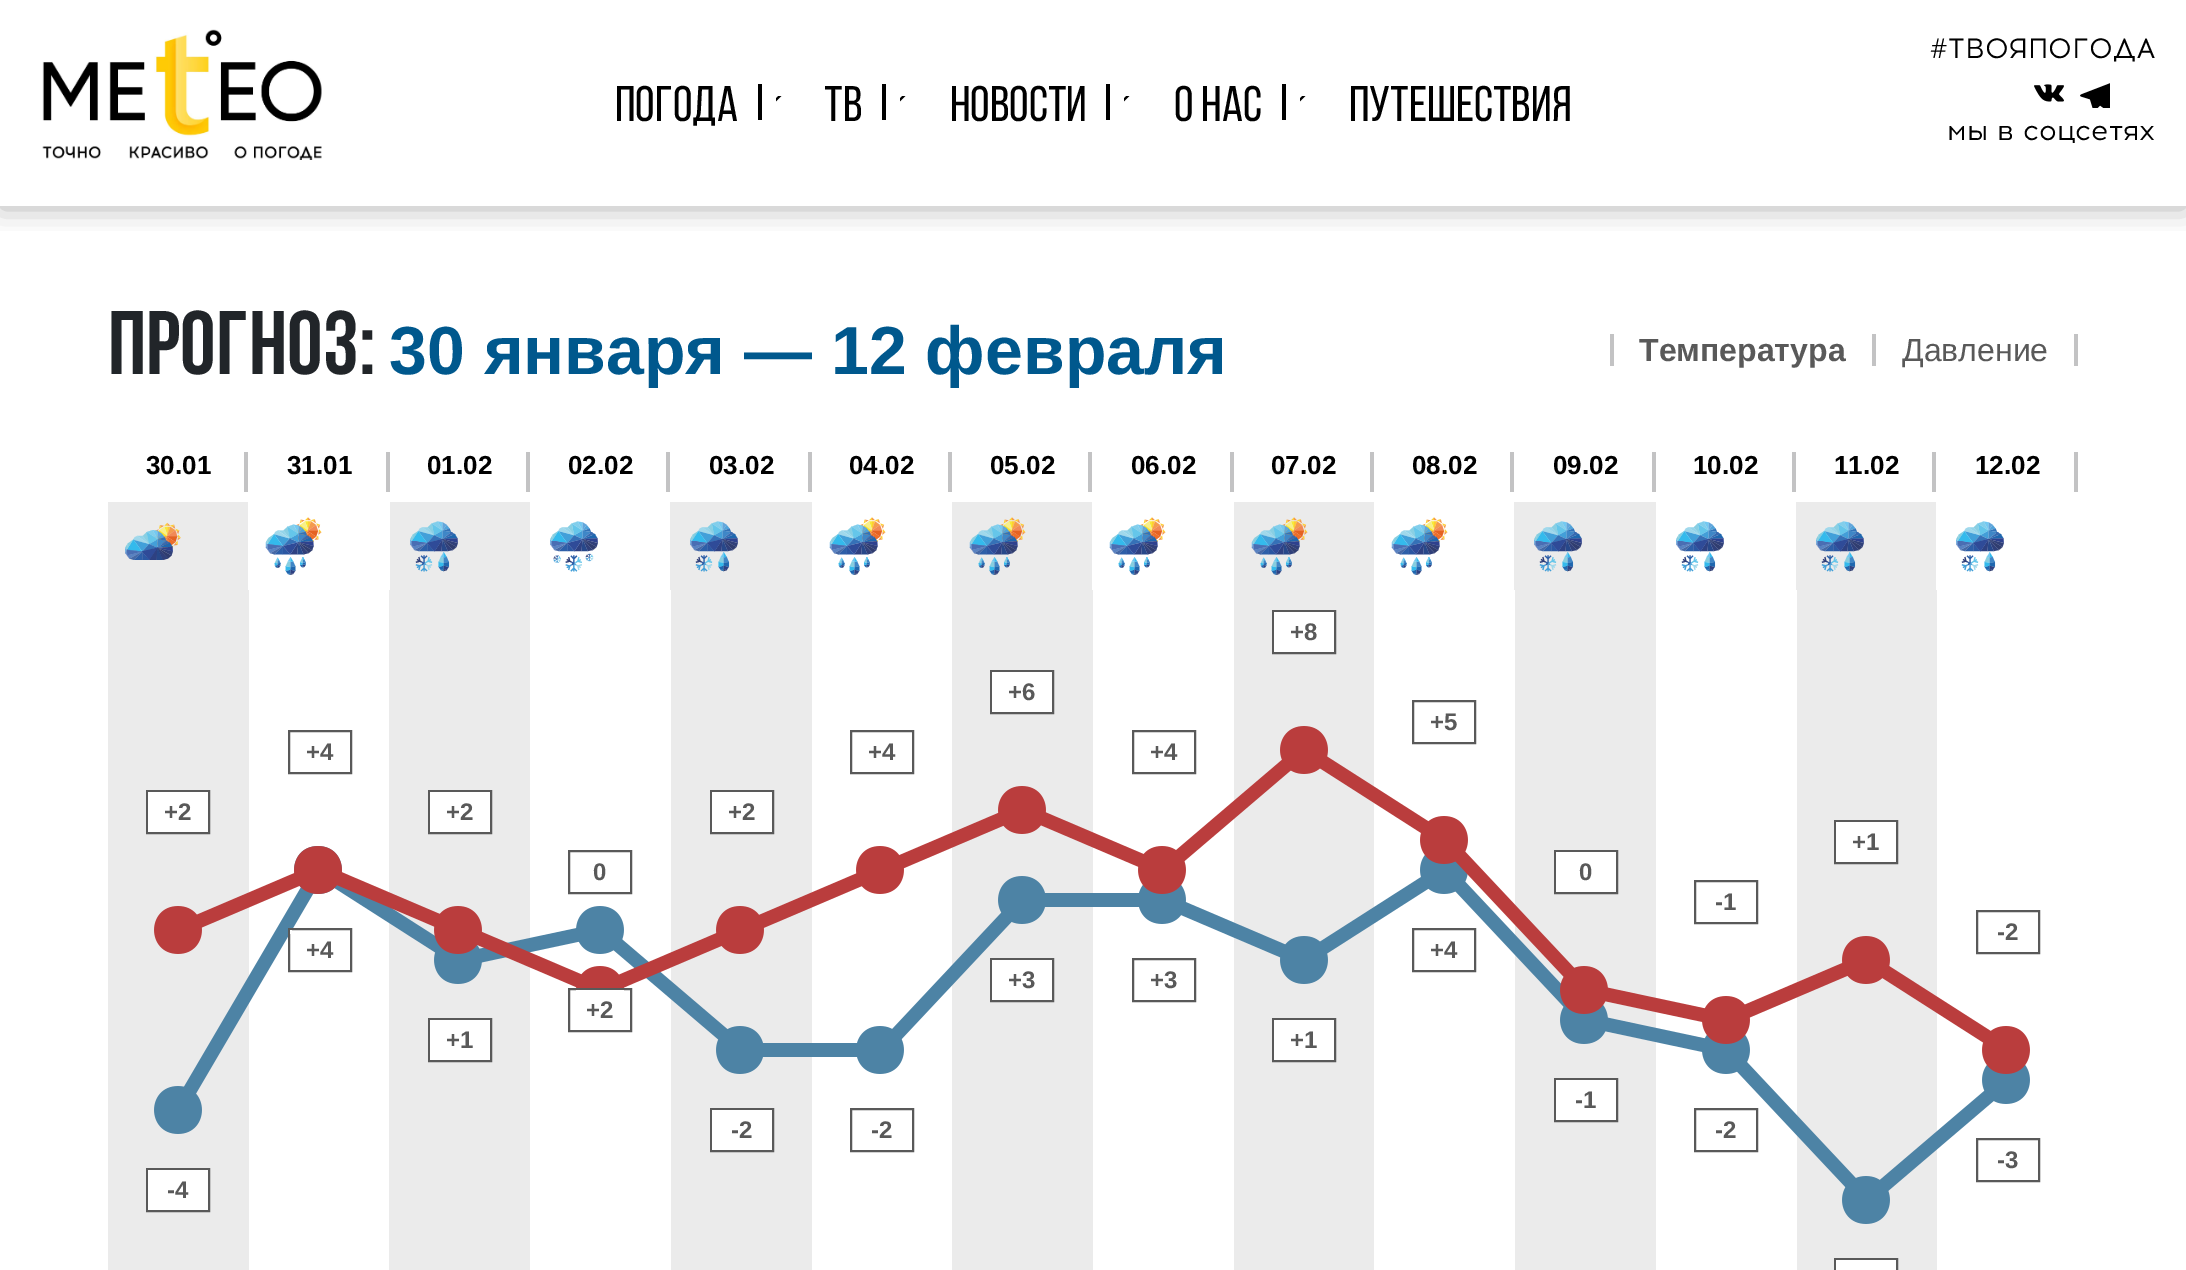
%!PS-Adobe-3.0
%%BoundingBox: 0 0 2186 1270
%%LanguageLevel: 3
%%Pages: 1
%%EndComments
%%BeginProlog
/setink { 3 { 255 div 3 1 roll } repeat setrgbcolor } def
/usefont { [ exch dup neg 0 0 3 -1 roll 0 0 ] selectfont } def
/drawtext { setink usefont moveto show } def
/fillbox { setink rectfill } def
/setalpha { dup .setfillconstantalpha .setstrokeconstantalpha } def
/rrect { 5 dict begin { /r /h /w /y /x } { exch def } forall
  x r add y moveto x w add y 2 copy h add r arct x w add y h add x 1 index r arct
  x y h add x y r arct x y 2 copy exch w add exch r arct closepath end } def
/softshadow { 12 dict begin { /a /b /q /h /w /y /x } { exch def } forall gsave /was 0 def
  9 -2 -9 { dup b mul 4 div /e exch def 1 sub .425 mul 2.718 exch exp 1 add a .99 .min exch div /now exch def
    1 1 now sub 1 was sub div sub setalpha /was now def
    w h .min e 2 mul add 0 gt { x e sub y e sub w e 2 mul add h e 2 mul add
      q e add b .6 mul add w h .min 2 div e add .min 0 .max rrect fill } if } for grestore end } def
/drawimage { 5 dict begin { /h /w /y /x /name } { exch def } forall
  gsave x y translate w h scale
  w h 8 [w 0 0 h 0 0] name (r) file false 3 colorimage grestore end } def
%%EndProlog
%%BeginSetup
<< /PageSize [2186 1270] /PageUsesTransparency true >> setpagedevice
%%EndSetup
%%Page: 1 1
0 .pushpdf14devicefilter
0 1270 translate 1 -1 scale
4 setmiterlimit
0 0 2186 1270 255 255 255 fillbox
gsave
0 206 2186 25 rectclip
0 0 0 setink
0 2 2186 206 0 15 0.3 softshadow
grestore
(assets/img1.rgb) 42 29 280 131 drawimage
(ПОГОДА) 615 121 /BebasNeue-Regular 50 0 0 0 drawtext
758 84 4 36 0 0 0 fillbox
(assets/img2.rgb) 776 96 6 6 drawimage
(ТВ) 824 121 /BebasNeue-Regular 50 0 0 0 drawtext
882 84 4 36 0 0 0 fillbox
(assets/img2.rgb) 900 96 6 6 drawimage
(НОВОСТИ) 950 121 /BebasNeue-Regular 50 0 0 0 drawtext
1106 84 4 36 0 0 0 fillbox
(assets/img2.rgb) 1124 96 6 6 drawimage
(О НАС) 1174 121 /BebasNeue-Regular 50 0 0 0 drawtext
1282 84 4 36 0 0 0 fillbox
(assets/img2.rgb) 1300 96 6 6 drawimage
(ПУТЕШЕСТВИЯ) 1349 121 /BebasNeue-Regular 50 0 0 0 drawtext
(#ТВОЯПОГОДА) 1929 58 /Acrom-Regular 28 0 0 0 drawtext
(assets/img3.rgb) 2034 84 30 18 drawimage
(assets/img4.rgb) 2080 83 30 25 drawimage
(мы в соцсетях) 1947 140 /Acrom-Regular 28 0 0 0 drawtext
(ПРОГНОЗ:) 108 374 /BebasNeue-Bold 90 33 37 41 drawtext
(30 января — 12 февраля) 389 374 /LiberationSans-Bold 68 0 88 141 drawtext
1610 334 4 32 195 195 196 fillbox
(Температура) 1639 361 /LiberationSans-Bold 32 89 89 89 drawtext
2074 334 4 32 195 195 196 fillbox
1872 334 4 32 195 195 196 fillbox
(Давление) 1902 361 /LiberationSans-Regular 32 89 89 89 drawtext
(30.01) 146 474 /LiberationSans-Bold 26 0 0 0 drawtext
244 452 4 40 195 195 196 fillbox
(31.01) 287 474 /LiberationSans-Bold 26 0 0 0 drawtext
386 452 4 40 195 195 196 fillbox
(01.02) 427 474 /LiberationSans-Bold 26 0 0 0 drawtext
526 452 4 40 195 195 196 fillbox
(02.02) 568 474 /LiberationSans-Bold 26 0 0 0 drawtext
666 452 4 40 195 195 196 fillbox
(03.02) 709 474 /LiberationSans-Bold 26 0 0 0 drawtext
808 452 4 40 195 195 196 fillbox
(04.02) 849 474 /LiberationSans-Bold 26 0 0 0 drawtext
948 452 4 40 195 195 196 fillbox
(05.02) 990 474 /LiberationSans-Bold 26 0 0 0 drawtext
1088 452 4 40 195 195 196 fillbox
(06.02) 1131 474 /LiberationSans-Bold 26 0 0 0 drawtext
1230 452 4 40 195 195 196 fillbox
(07.02) 1271 474 /LiberationSans-Bold 26 0 0 0 drawtext
1370 452 4 40 195 195 196 fillbox
(08.02) 1412 474 /LiberationSans-Bold 26 0 0 0 drawtext
1510 452 4 40 195 195 196 fillbox
(09.02) 1553 474 /LiberationSans-Bold 26 0 0 0 drawtext
1652 452 4 40 195 195 196 fillbox
(10.02) 1693 474 /LiberationSans-Bold 26 0 0 0 drawtext
1792 452 4 40 195 195 196 fillbox
(11.02) 1834 474 /LiberationSans-Bold 26 0 0 0 drawtext
1932 452 4 40 195 195 196 fillbox
(12.02) 1975 474 /LiberationSans-Bold 26 0 0 0 drawtext
2074 452 4 40 195 195 196 fillbox
108 502 140 88 235 235 235 fillbox
(assets/img5.rgb) 125 522 56 38 drawimage
(assets/img6.rgb) 265 517 57 58 drawimage
390 502 140 88 235 235 235 fillbox
(assets/img7.rgb) 410 521 48 51 drawimage
(assets/img8.rgb) 550 521 48 51 drawimage
670 502 142 88 235 235 235 fillbox
(assets/img7.rgb) 690 521 48 51 drawimage
(assets/img6.rgb) 829 517 57 58 drawimage
952 502 140 88 235 235 235 fillbox
(assets/img9.rgb) 969 517 57 58 drawimage
(assets/img6.rgb) 1109 517 57 58 drawimage
1234 502 140 768 235 235 235 fillbox
(assets/img10.rgb) 1251 517 57 58 drawimage
(assets/img6.rgb) 1391 517 57 58 drawimage
1514 502 142 88 235 235 235 fillbox
(assets/img11.rgb) 1534 521 48 51 drawimage
(assets/img12.rgb) 1676 521 48 51 drawimage
1796 502 140 88 235 235 235 fillbox
(assets/img11.rgb) 1816 521 48 51 drawimage
(assets/img12.rgb) 1956 521 48 51 drawimage
108 590 141 680 235 235 235 fillbox
389 590 141 680 235 235 235 fillbox
671 590 141 680 235 235 235 fillbox
952 590 141 680 235 235 235 fillbox
1515 590 141 680 235 235 235 fillbox
1797 590 140 680 235 235 235 fillbox
89 89 89 setink
2 setlinewidth
1273 611 62 42 rectstroke
1274 612 60 40 255 255 255 fillbox
(+8) 1290 640 /LiberationSans-Bold 24 89 89 89 drawtext
991 671 62 42 rectstroke
992 672 60 40 255 255 255 fillbox
(+6) 1008 700 /LiberationSans-Bold 24 89 89 89 drawtext
(assets/img13.rgb) 154 726 1876 498 drawimage
1413 701 62 42 rectstroke
(+5) 1430 730 /LiberationSans-Bold 24 89 89 89 drawtext
289 731 62 42 rectstroke
(+4) 306 760 /LiberationSans-Bold 24 89 89 89 drawtext
851 731 62 42 rectstroke
(+4) 868 760 /LiberationSans-Bold 24 89 89 89 drawtext
1133 731 62 42 rectstroke
(+4) 1150 760 /LiberationSans-Bold 24 89 89 89 drawtext
147 791 62 42 rectstroke
148 792 60 40 255 255 255 fillbox
(+2) 164 820 /LiberationSans-Bold 24 89 89 89 drawtext
429 791 62 42 rectstroke
430 792 60 40 255 255 255 fillbox
(+2) 446 820 /LiberationSans-Bold 24 89 89 89 drawtext
711 791 62 42 rectstroke
712 792 60 40 255 255 255 fillbox
(+2) 728 820 /LiberationSans-Bold 24 89 89 89 drawtext
1835 821 62 42 rectstroke
1836 822 60 40 255 255 255 fillbox
(+1) 1852 850 /LiberationSans-Bold 24 89 89 89 drawtext
569 851 62 42 rectstroke
(0) 593 880 /LiberationSans-Bold 24 89 89 89 drawtext
1555 851 62 42 rectstroke
1556 852 60 40 255 255 255 fillbox
(0) 1579 880 /LiberationSans-Bold 24 89 89 89 drawtext
1695 881 62 42 rectstroke
(-1) 1715 910 /LiberationSans-Bold 24 89 89 89 drawtext
1977 911 62 42 rectstroke
(-2) 1997 940 /LiberationSans-Bold 24 89 89 89 drawtext
289 929 62 42 rectstroke
290 930 2 4 255 255 255 fillbox
(+4) 306 958 /LiberationSans-Bold 24 89 89 89 drawtext
1413 929 62 42 rectstroke
(+4) 1430 958 /LiberationSans-Bold 24 89 89 89 drawtext
991 959 62 42 rectstroke
992 960 60 40 255 255 255 fillbox
(+3) 1008 988 /LiberationSans-Bold 24 89 89 89 drawtext
1133 959 62 42 rectstroke
(+3) 1150 988 /LiberationSans-Bold 24 89 89 89 drawtext
569 989 62 42 rectstroke
576 990 48 24 255 255 255 fillbox
(+2) 586 1018 /LiberationSans-Bold 24 89 89 89 drawtext
429 1019 62 42 rectstroke
430 1020 60 40 255 255 255 fillbox
(+1) 446 1048 /LiberationSans-Bold 24 89 89 89 drawtext
1273 1019 62 42 rectstroke
1274 1020 60 40 255 255 255 fillbox
(+1) 1290 1048 /LiberationSans-Bold 24 89 89 89 drawtext
1555 1079 62 42 rectstroke
1556 1080 60 40 255 255 255 fillbox
(-1) 1575 1108 /LiberationSans-Bold 24 89 89 89 drawtext
711 1109 62 42 rectstroke
712 1110 60 40 255 255 255 fillbox
(-2) 731 1138 /LiberationSans-Bold 24 89 89 89 drawtext
851 1109 62 42 rectstroke
(-2) 871 1138 /LiberationSans-Bold 24 89 89 89 drawtext
1695 1109 62 42 rectstroke
(-2) 1715 1138 /LiberationSans-Bold 24 89 89 89 drawtext
1977 1139 62 42 rectstroke
(-3) 1997 1168 /LiberationSans-Bold 24 89 89 89 drawtext
147 1169 62 42 rectstroke
148 1170 60 40 255 255 255 fillbox
(-4) 167 1198 /LiberationSans-Bold 24 89 89 89 drawtext
1835 1259 62 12 rectstroke
1836 1260 60 10 255 255 255 fillbox
.poppdf14devicefilter showpage
%%EOF
